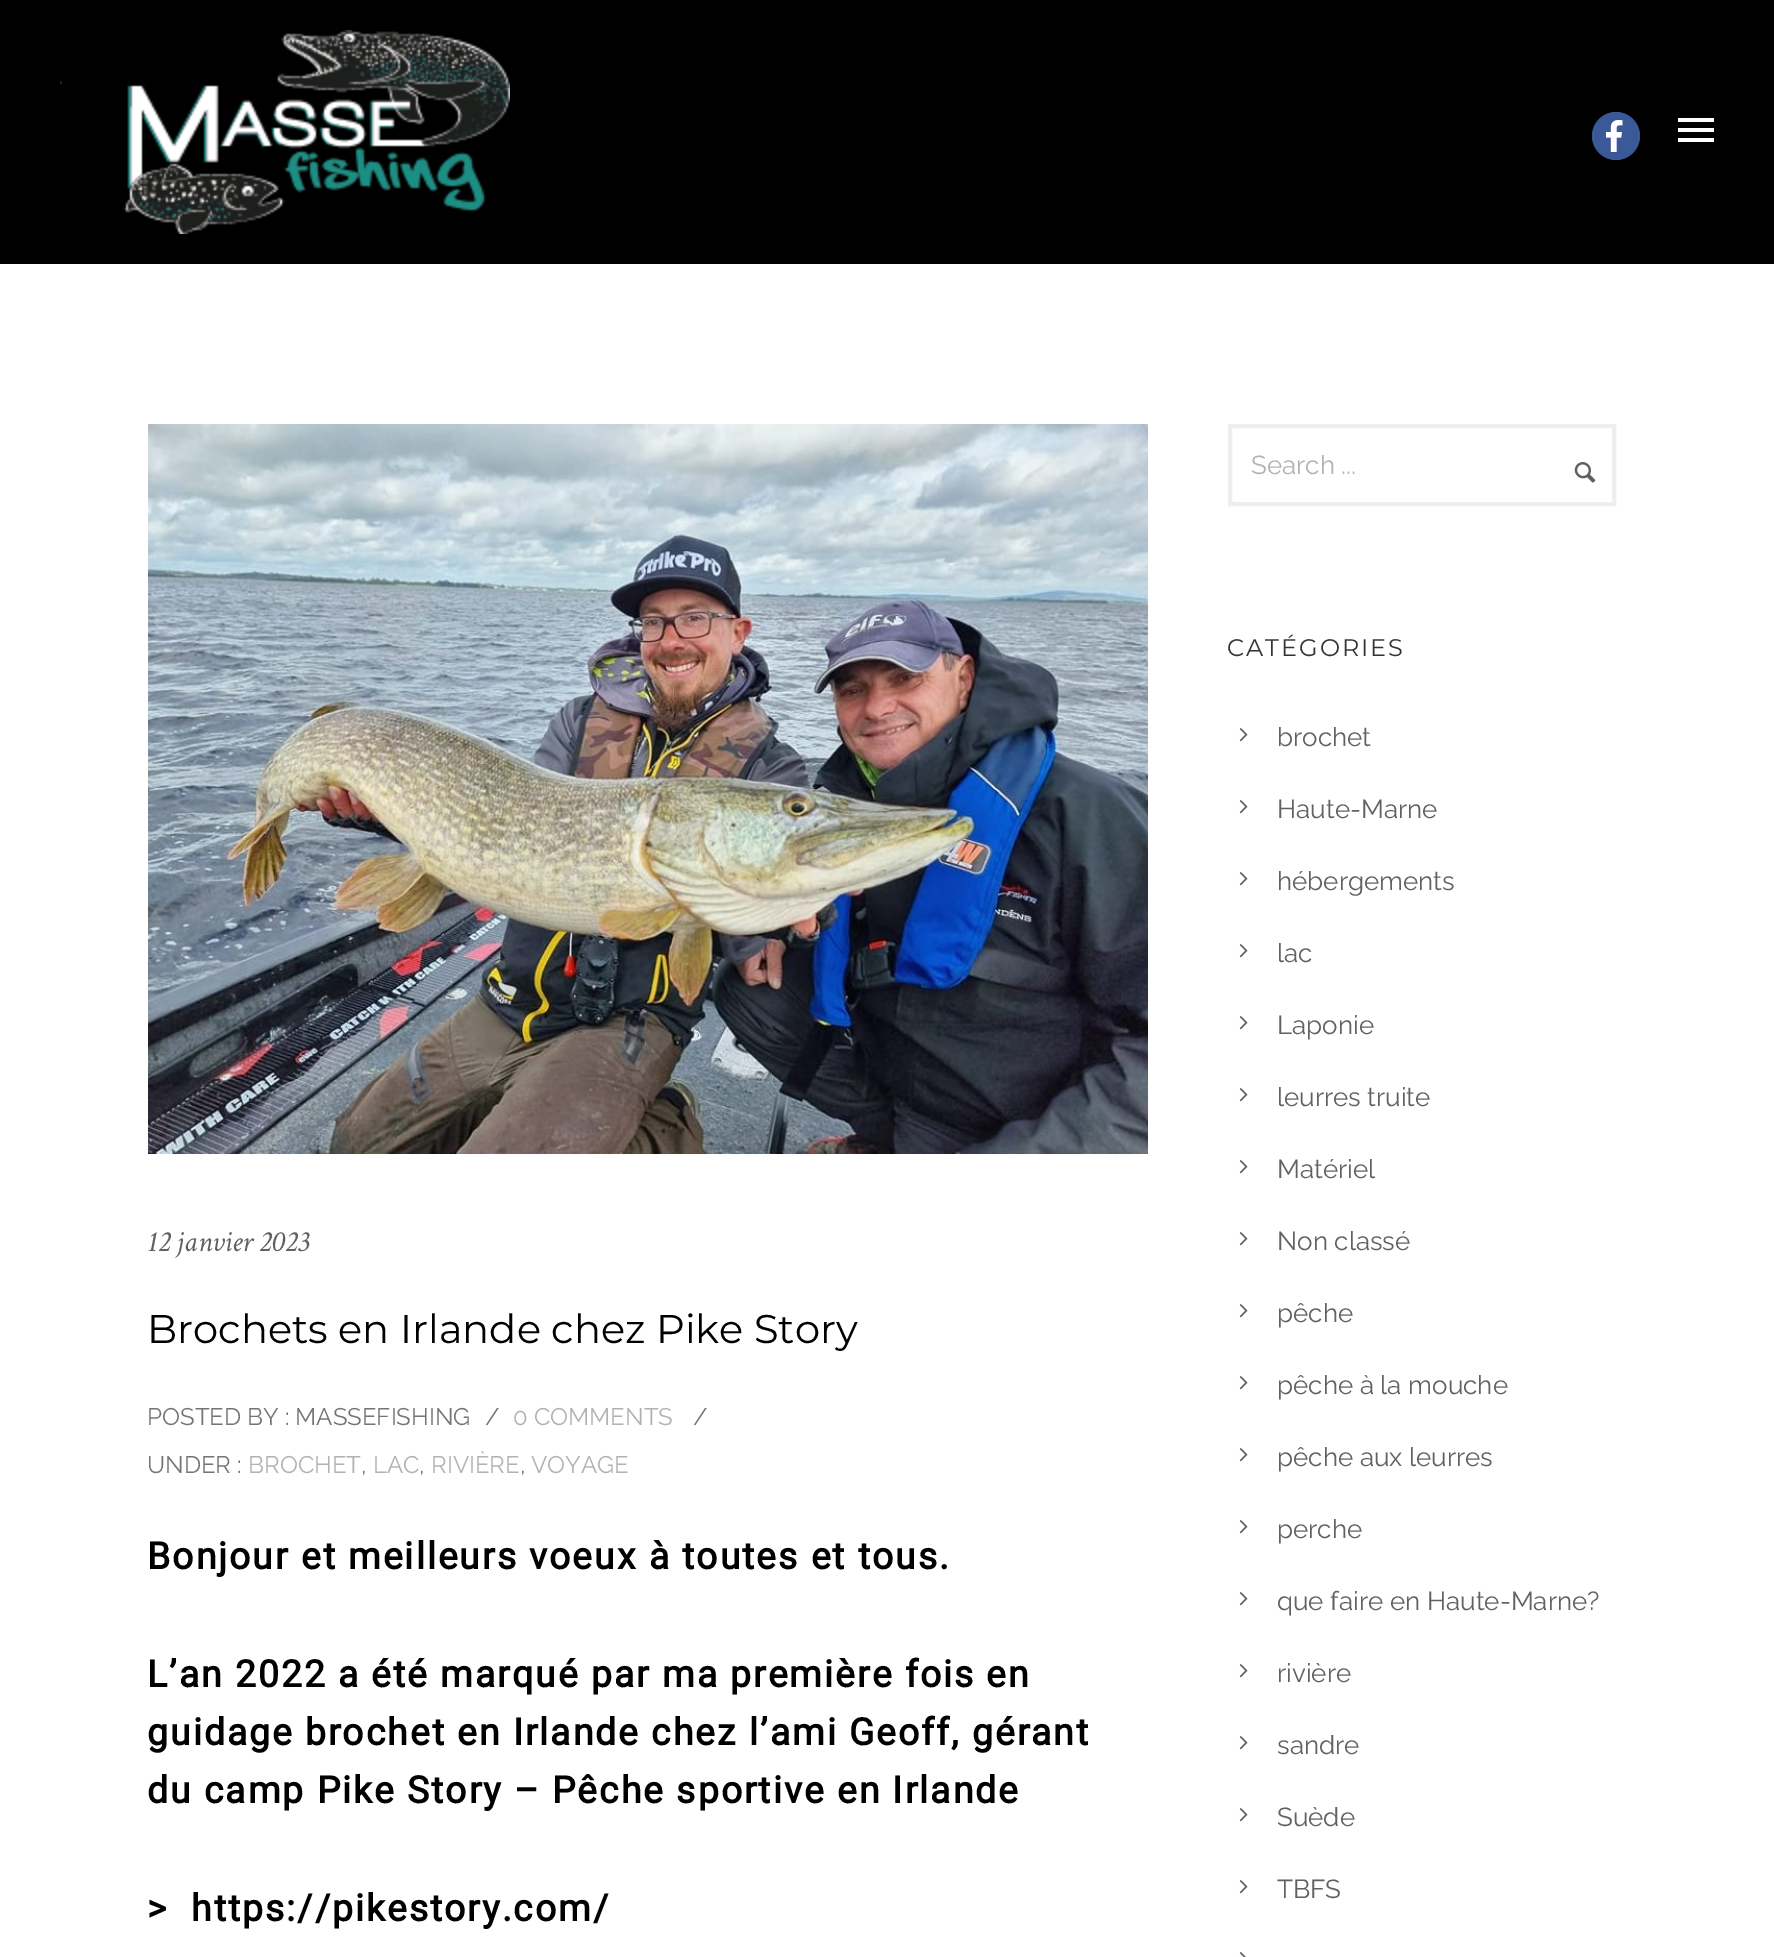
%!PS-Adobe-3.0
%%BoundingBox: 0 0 1774 1957
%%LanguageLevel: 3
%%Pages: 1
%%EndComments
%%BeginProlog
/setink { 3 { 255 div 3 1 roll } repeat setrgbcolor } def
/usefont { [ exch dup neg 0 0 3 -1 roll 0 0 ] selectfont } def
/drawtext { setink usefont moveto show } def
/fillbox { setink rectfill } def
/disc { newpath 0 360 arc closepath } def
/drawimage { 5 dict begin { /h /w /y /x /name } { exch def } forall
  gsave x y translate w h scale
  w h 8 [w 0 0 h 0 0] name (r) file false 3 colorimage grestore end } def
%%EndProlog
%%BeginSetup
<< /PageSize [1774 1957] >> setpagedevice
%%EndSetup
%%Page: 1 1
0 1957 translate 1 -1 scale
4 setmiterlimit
0 0 1774 1957 255 255 255 fillbox
0 0 1774 264 0 0 0 fillbox
(assets/img1.rgb) 60 30 450 204 drawimage
59 89 152 setink
1616 136 24 disc fill
(assets/img2.rgb) 1606 120 17 32 drawimage
1678 118 36 4 255 255 255 fillbox
1678 128 36 4 255 255 255 fillbox
1678 138 36 4 255 255 255 fillbox
(assets/img3.rgb) 148 424 1000 730 drawimage
(12 janvier 2023) 147 1251 /CrimsonText-Italic 30 95 98 99 drawtext
(Brochets en Irlande chez Pike Story) 147 1343 /Montserrat-Regular 40 0 0 0 drawtext
(POSTED BY : MASSEFISHING) 147 1425 /Raleway-Regular 24 117 117 117 drawtext
(/) 485 1425 /Raleway-Regular 24 117 117 117 drawtext
(0 COMMENTS) 513 1425 /Raleway-Regular 24 178 178 178 drawtext
(/) 693 1425 /Raleway-Regular 24 117 117 117 drawtext
(UNDER :) 147 1473 /Raleway-Regular 24 117 117 117 drawtext
(BROCHET) 248 1473 /Raleway-Regular 24 178 178 178 drawtext
(,) 361 1473 /Raleway-Regular 24 117 117 117 drawtext
(LAC) 373 1473 /Raleway-Regular 24 178 178 178 drawtext
(,) 419 1473 /Raleway-Regular 24 117 117 117 drawtext
(RIVIÈRE) 431 1473 /Raleway-Regular 24 178 178 178 drawtext
(,) 520 1473 /Raleway-Regular 24 117 117 117 drawtext
(VOYAGE) 531 1473 /Raleway-Regular 24 178 178 178 drawtext
/Roboto-Bold 37.3 usefont
0 0 0 setink
147 1569 moveto 2 0 (Bonjour et meilleurs voeux à toutes et tous.) ashow
147 1687 moveto 2 0 (L’an 2022 a été marqué par ma première fois en) ashow
147 1745 moveto 2 0 (guidage brochet en Irlande chez l’ami Geoff, gérant) ashow
147 1803 moveto 2 0 (du camp Pike Story – Pêche sportive en Irlande) ashow
147 1921 moveto 2 0 (>) ashow
191 1921 moveto 2 0 (https://pikestory.com/) ashow
238 238 238 setink
4 setlinewidth
1230 426 384 78 rectstroke
(Search ...) 1251 474 /Raleway-Regular 26 178 178 178 drawtext
(assets/img4.rgb) 1574 462 22 21 drawimage
/Montserrat-Regular 24 usefont
51 51 51 setink
1227 656 moveto 2 0 (CATÉGORIES) ashow
(assets/img5.rgb) 1239 728 9 14 drawimage
(brochet) 1277 746 /Raleway-Regular 26 95 98 99 drawtext
(assets/img5.rgb) 1239 800 9 14 drawimage
(Haute-Marne) 1277 818 /Raleway-Regular 26 95 98 99 drawtext
(assets/img5.rgb) 1239 872 9 14 drawimage
(hébergements) 1277 890 /Raleway-Regular 26 95 98 99 drawtext
(assets/img5.rgb) 1239 944 9 14 drawimage
(lac) 1277 962 /Raleway-Regular 26 95 98 99 drawtext
(assets/img5.rgb) 1239 1016 9 14 drawimage
(Laponie) 1277 1034 /Raleway-Regular 26 95 98 99 drawtext
(assets/img5.rgb) 1239 1088 9 14 drawimage
(leurres truite) 1277 1106 /Raleway-Regular 26 95 98 99 drawtext
(assets/img5.rgb) 1239 1160 9 14 drawimage
(Matériel) 1277 1178 /Raleway-Regular 26 95 98 99 drawtext
(assets/img5.rgb) 1239 1232 9 14 drawimage
(Non classé) 1277 1250 /Raleway-Regular 26 95 98 99 drawtext
(assets/img5.rgb) 1239 1304 9 14 drawimage
(pêche) 1277 1322 /Raleway-Regular 26 95 98 99 drawtext
(assets/img5.rgb) 1239 1376 9 14 drawimage
(pêche à la mouche) 1277 1394 /Raleway-Regular 26 95 98 99 drawtext
(assets/img5.rgb) 1239 1448 9 14 drawimage
(pêche aux leurres) 1277 1466 /Raleway-Regular 26 95 98 99 drawtext
(assets/img5.rgb) 1239 1520 9 14 drawimage
(perche) 1277 1538 /Raleway-Regular 26 95 98 99 drawtext
(assets/img5.rgb) 1239 1592 9 14 drawimage
(que faire en Haute-Marne?) 1277 1610 /Raleway-Regular 26 95 98 99 drawtext
(assets/img5.rgb) 1239 1664 9 14 drawimage
(rivière) 1277 1682 /Raleway-Regular 26 95 98 99 drawtext
(assets/img5.rgb) 1239 1736 9 14 drawimage
(sandre) 1277 1754 /Raleway-Regular 26 95 98 99 drawtext
(assets/img5.rgb) 1239 1808 9 14 drawimage
(Suède) 1277 1826 /Raleway-Regular 26 95 98 99 drawtext
(assets/img5.rgb) 1239 1880 9 14 drawimage
(TBFS) 1277 1898 /Raleway-Regular 26 95 98 99 drawtext
(assets/img6.rgb) 1239 1952 7 5 drawimage
showpage
%%EOF
